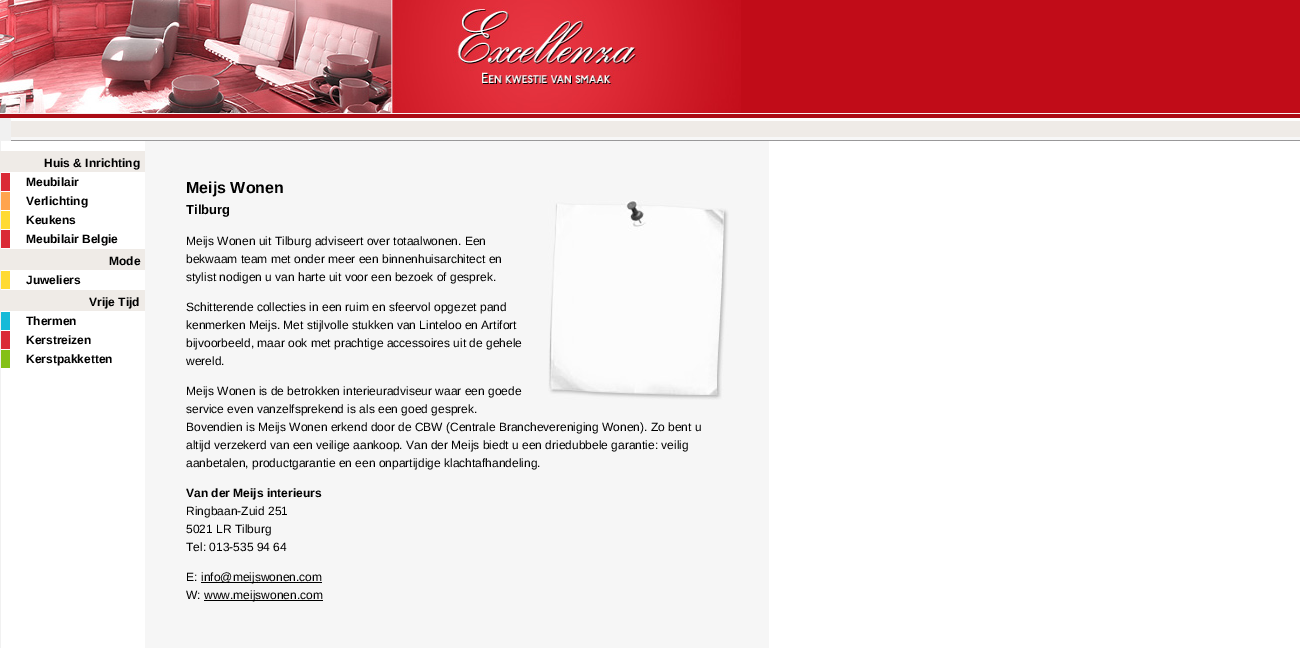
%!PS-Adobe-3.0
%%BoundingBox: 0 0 1300 648
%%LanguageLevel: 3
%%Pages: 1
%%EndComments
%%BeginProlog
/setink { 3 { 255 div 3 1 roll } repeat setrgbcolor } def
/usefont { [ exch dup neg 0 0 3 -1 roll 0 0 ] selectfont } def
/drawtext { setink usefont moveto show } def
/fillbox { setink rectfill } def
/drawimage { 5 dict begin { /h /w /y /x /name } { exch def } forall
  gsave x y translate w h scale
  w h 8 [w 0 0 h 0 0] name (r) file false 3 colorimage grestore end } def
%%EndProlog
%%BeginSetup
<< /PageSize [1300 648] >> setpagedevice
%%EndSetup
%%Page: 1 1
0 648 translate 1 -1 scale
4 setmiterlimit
0 0 1300 648 255 255 255 fillbox
(assets/img1.rgb) 0 141 769 507 drawimage
(assets/img2.rgb) 0 0 1300 141 drawimage
(assets/img3.rgb) 0 0 741 113 drawimage
0 118 11 23 241 241 241 fillbox
0 151 145 21 239 235 231 fillbox
(Huis & Inrichting) 44 167 /LiberationSans-Bold 12 0 0 0 drawtext
1 173 9 18 218 42 54 fillbox
(Meubilair) 26 186 /LiberationSans-Bold 12 0 0 0 drawtext
1 192 9 18 255 164 77 fillbox
(Verlichting) 26 205 /LiberationSans-Bold 12 0 0 0 drawtext
1 211 9 18 255 218 51 fillbox
(Keukens) 26 224 /LiberationSans-Bold 12 0 0 0 drawtext
1 230 9 18 218 42 54 fillbox
(Meubilair Belgie) 26 243 /LiberationSans-Bold 12 0 0 0 drawtext
0 249 145 21 239 235 231 fillbox
(Mode) 109 265 /LiberationSans-Bold 12 0 0 0 drawtext
1 271 9 18 255 218 51 fillbox
(Juweliers) 26 284 /LiberationSans-Bold 12 0 0 0 drawtext
0 290 145 21 239 235 231 fillbox
(Vrije Tijd) 89 306 /LiberationSans-Bold 12 0 0 0 drawtext
1 312 9 18 21 186 216 fillbox
(Thermen) 26 325 /LiberationSans-Bold 12 0 0 0 drawtext
1 331 9 18 218 42 54 fillbox
(Kerstreizen) 26 344 /LiberationSans-Bold 12 0 0 0 drawtext
1 350 9 18 132 192 23 fillbox
(Kerstpakketten) 26 363 /LiberationSans-Bold 12 0 0 0 drawtext
(Meijs Wonen) 186 193 /LiberationSans-Bold 16 0 0 0 drawtext
(Tilburg) 186 214 /LiberationSans-Bold 13 0 0 0 drawtext
(assets/img4.rgb) 548 200 181 200 drawimage
(Meijs Wonen uit Tilburg adviseert over totaalwonen. Een) 186 245 /LiberationSans-Regular 12 0 0 0 drawtext
(bekwaam team met onder meer een binnenhuisarchitect en) 186 263 /LiberationSans-Regular 12 0 0 0 drawtext
(stylist nodigen u van harte uit voor een bezoek of gesprek.) 186 281 /LiberationSans-Regular 12 0 0 0 drawtext
(Schitterende collecties in een ruim en sfeervol opgezet pand) 186 311 /LiberationSans-Regular 12 0 0 0 drawtext
(kenmerken Meijs. Met stijlvolle stukken van Linteloo en Artifort) 186 329 /LiberationSans-Regular 12 0 0 0 drawtext
(bijvoorbeeld, maar ook met prachtige accessoires uit de gehele) 186 347 /LiberationSans-Regular 12 0 0 0 drawtext
(wereld.) 186 365 /LiberationSans-Regular 12 0 0 0 drawtext
(Meijs Wonen is de betrokken interieuradviseur waar een goede) 186 395 /LiberationSans-Regular 12 0 0 0 drawtext
(service even vanzelfsprekend is als een goed gesprek.) 186 413 /LiberationSans-Regular 12 0 0 0 drawtext
(Bovendien is Meijs Wonen erkend door de CBW \(Centrale Branchevereniging Wonen\). Zo bent u) 186 431 /LiberationSans-Regular 12 0 0 0 drawtext
(altijd verzekerd van een veilige aankoop. Van der Meijs biedt u een driedubbele garantie: veilig) 186 449 /LiberationSans-Regular 12 0 0 0 drawtext
(aanbetalen, productgarantie en een onpartijdige klachtafhandeling.) 186 467 /LiberationSans-Regular 12 0 0 0 drawtext
(Van der Meijs interieurs) 186 497 /LiberationSans-Bold 12 0 0 0 drawtext
(Ringbaan-Zuid 251) 186 515 /LiberationSans-Regular 12 0 0 0 drawtext
(5021 LR Tilburg) 186 533 /LiberationSans-Regular 12 0 0 0 drawtext
(Tel: 013-535 94 64) 186 551 /LiberationSans-Regular 12 0 0 0 drawtext
(E:) 186 581 /LiberationSans-Regular 12 0 0 0 drawtext
201 582 121 1 0 0 0 fillbox
(info@meijswonen.com) 201 581 /LiberationSans-Regular 12 0 0 0 drawtext
(W:) 186 599 /LiberationSans-Regular 12 0 0 0 drawtext
204 600 119 1 0 0 0 fillbox
(www.meijswonen.com) 204 599 /LiberationSans-Regular 12 0 0 0 drawtext
showpage
%%EOF
